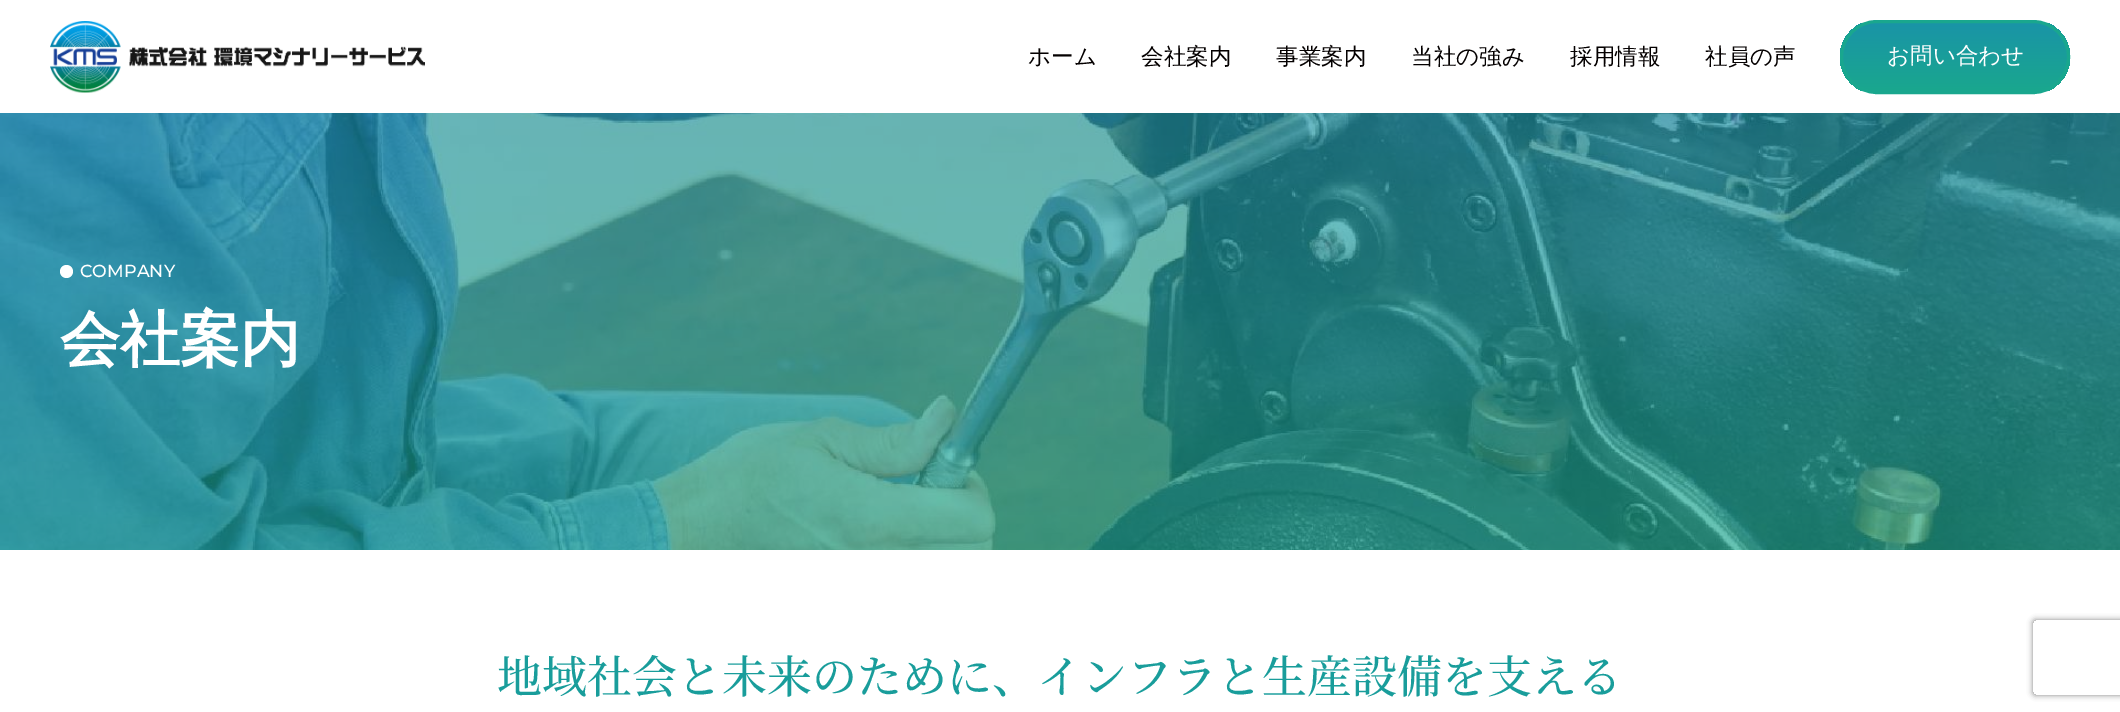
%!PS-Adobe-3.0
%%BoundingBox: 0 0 2120 712
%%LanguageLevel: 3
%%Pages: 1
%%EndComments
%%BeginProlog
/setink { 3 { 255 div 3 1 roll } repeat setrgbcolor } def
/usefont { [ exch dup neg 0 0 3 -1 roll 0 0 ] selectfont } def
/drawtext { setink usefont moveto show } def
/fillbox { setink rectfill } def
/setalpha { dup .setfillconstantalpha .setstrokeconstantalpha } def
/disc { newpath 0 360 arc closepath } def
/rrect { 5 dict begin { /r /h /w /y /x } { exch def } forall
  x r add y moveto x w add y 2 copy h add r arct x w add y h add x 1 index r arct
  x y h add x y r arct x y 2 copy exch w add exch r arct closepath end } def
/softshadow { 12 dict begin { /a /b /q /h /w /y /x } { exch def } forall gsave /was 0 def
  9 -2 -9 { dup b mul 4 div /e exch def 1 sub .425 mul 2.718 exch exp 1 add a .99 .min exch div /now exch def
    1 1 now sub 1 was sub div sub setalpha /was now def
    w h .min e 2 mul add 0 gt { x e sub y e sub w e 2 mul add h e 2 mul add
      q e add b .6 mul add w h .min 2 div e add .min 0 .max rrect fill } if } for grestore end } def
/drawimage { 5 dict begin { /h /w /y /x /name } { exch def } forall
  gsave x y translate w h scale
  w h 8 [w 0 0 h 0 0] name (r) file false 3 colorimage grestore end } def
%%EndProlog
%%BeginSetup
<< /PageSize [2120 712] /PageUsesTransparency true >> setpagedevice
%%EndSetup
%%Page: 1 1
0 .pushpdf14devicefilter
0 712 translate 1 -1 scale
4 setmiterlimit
0 0 2120 712 255 255 255 fillbox
(assets/img1.rgb) 50 21 375 72 drawimage
(ホーム) 1028 64 /WenQuanYiZenHei-Medium 22.5 4 0 0 drawtext
(会社案内) 1141 64 /WenQuanYiZenHei-Medium 22.5 4 0 0 drawtext
(事業案内) 1276 64 /WenQuanYiZenHei-Medium 22.5 4 0 0 drawtext
(当社の強み) 1411 64 /WenQuanYiZenHei-Medium 22.5 4 0 0 drawtext
(採用情報) 1570 64 /WenQuanYiZenHei-Medium 22.5 4 0 0 drawtext
(社員の声) 1705 64 /WenQuanYiZenHei-Medium 22.5 4 0 0 drawtext
gsave
1840 20 230 74 37 rrect clip newpath
gsave 1840 23 moveto 2070 23 lineto 2070 91 lineto 1840 91 lineto closepath clip newpath
<< /ShadingType 2 /ColorSpace /DeviceRGB /Coords [1955 22 1955 91] /Extend [true true] /Function << /FunctionType 2 /Domain [0 1] /C0 [0.098 0.58 0.655] /C1 [0.098 0.655 0.557] /N 1 >> >> shfill grestore
grestore
25 167 142 setink
3 setlinewidth
1841.5 21.5 227 71 35.5 rrect stroke
(お問い合わせ) 1887 63 /WenQuanYiZenHei-Medium 22.5 255 255 255 drawtext
(assets/img2.rgb) 0 113 2120 437 drawimage
66.5 271.5 6.5 disc fill
(COMPANY) 80 277 /Montserrat-Medium 17.5 255 255 255 drawtext
(会社案内) 60 360 /WenQuanYiZenHei-Bold 60 255 255 255 drawtext
(地域社会と未来のために、インフラと生産設備を支える) 497 693 /NotoSerifJP-Medium 45 25 157 155 drawtext
gsave
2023 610 moveto 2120 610 lineto 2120 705 lineto 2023 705 lineto closepath 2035.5 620 moveto 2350.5 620 lineto 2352 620 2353 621 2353 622.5 curveto 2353 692.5 lineto 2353 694 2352 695 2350.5 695 curveto 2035.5 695 lineto 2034 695 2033 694 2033 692.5 curveto 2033 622.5 lineto 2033 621 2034 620 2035.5 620 curveto closepath eoclip newpath
128 128 128 setink
2033 620 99 75 2.5 3 1 softshadow
grestore
.poppdf14devicefilter showpage
%%EOF
